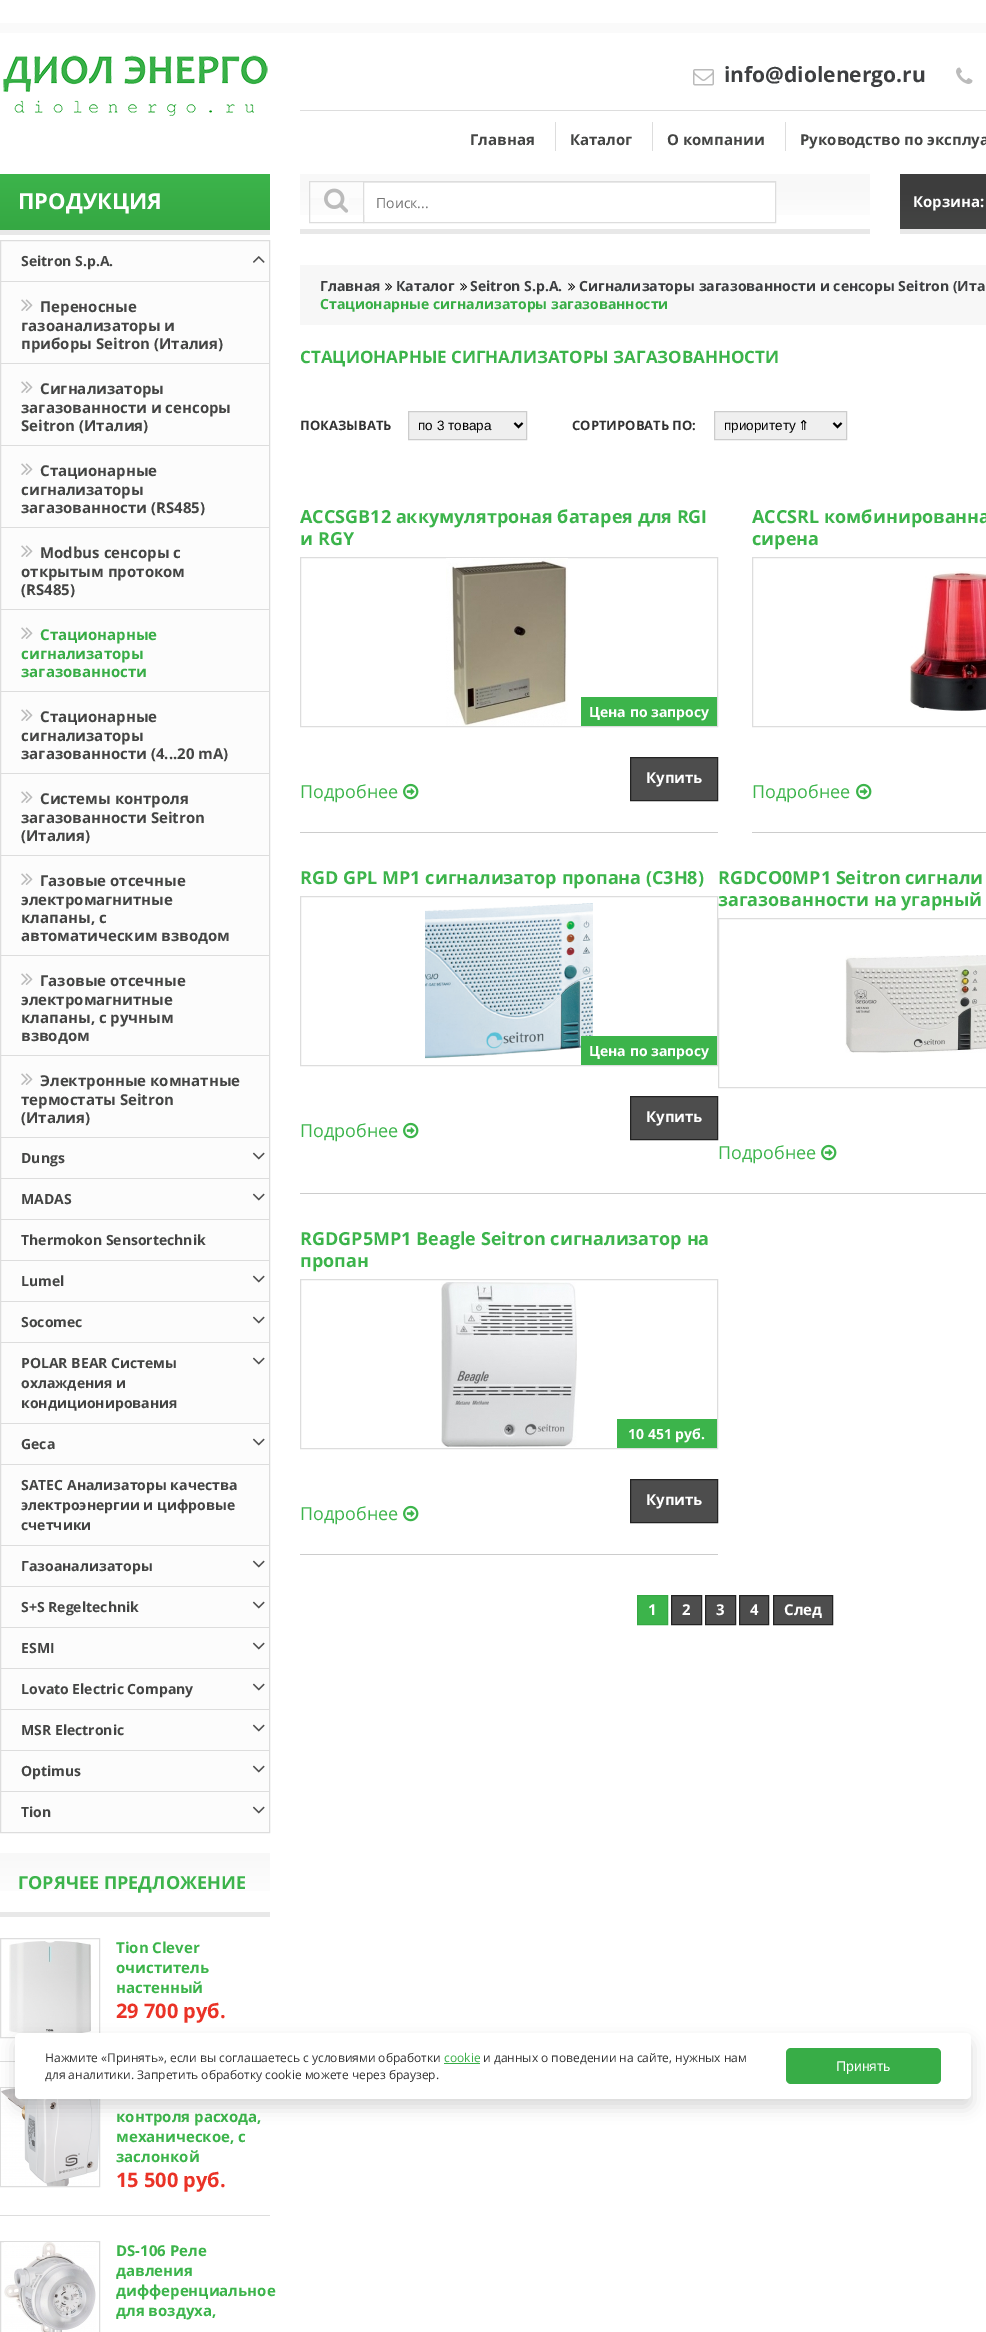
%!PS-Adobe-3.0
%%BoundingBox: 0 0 986 2332
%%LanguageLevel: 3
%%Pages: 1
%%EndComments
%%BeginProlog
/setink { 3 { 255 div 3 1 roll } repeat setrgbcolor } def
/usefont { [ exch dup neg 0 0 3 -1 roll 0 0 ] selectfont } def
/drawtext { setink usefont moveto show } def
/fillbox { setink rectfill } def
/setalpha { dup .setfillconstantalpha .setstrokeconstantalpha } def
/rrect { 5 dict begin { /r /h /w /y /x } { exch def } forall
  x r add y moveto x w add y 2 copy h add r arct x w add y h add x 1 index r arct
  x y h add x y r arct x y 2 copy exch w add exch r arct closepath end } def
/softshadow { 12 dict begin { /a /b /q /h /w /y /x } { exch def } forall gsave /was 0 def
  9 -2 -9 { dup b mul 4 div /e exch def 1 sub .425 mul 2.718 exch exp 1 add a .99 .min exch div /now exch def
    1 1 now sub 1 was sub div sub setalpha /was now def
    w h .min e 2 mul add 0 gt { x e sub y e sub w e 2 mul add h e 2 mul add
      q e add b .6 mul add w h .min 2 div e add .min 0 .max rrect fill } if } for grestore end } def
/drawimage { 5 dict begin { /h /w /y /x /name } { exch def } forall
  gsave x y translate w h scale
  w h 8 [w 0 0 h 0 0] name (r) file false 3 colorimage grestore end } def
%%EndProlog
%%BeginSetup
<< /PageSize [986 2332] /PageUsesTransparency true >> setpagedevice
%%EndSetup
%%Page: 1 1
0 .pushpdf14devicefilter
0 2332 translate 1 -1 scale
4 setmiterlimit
0 0 986 2332 255 255 255 fillbox
0 23 986 10 250 250 250 fillbox
(assets/img1.rgb) 3 55 265 61 drawimage
300 110 686 1 221 221 221 fillbox
(assets/img2.rgb) 693 69 21 17 drawimage
(info@diolenergo.ru) 724 82 /OpenSans-Bold 21 61 63 65 drawtext
(assets/img3.rgb) 956 67 17 17 drawimage
(Главная) 470 145 /OpenSans-Bold 15 68 69 68 drawtext
555 122 1 29 221 221 221 fillbox
(Каталог) 570 145 /OpenSans-Bold 15 68 69 68 drawtext
652 122 1 29 221 221 221 fillbox
(О компании) 667 145 /OpenSans-Bold 15 68 69 68 drawtext
785 122 1 29 221 221 221 fillbox
(Руководство по эксплуа) 800 145 /OpenSans-Bold 15 68 69 68 drawtext
gsave 0 174 moveto 270 174 lineto 270 230 lineto 0 230 lineto closepath clip newpath
<< /ShadingType 2 /ColorSpace /DeviceRGB /Coords [0 230 0 174] /Extend [true true] /Function << /FunctionType 2 /Domain [0 1] /C0 [0.208 0.659 0.263] /C1 [0.235 0.706 0.294] /N 1 >> >> shfill grestore
0 230 270 5 232 232 232 fillbox
(ПРОДУКЦИЯ) 18 209 /OpenSans-Bold 22 255 255 255 drawtext
gsave 300 174 moveto 870 174 lineto 870 215 lineto 300 215 lineto closepath clip newpath
<< /ShadingType 2 /ColorSpace /DeviceRGB /Coords [300 229 300 174] /Extend [true true] /Function << /FunctionType 3 /Domain [0 1] /Functions [<< /FunctionType 2 /Domain [0 1] /C0 [1 1 1] /C1 [0.973 0.973 0.973] /N 1 >> << /FunctionType 2 /Domain [0 1] /C0 [0.973 0.973 0.973] /C1 [0.973 0.973 0.973] /N 1 >>] /Bounds [0.71] /Encode [0 1 0 1] >> >> shfill grestore
300 229 570 5 232 232 232 fillbox
310 182 53 16 252 252 252 fillbox
221 221 221 setink
309.5 181.5 54 41 rectstroke
(assets/img4.rgb) 324 188 25 25 drawimage
364 183 411 32 255 255 255 fillbox
364 182 411 1 236 236 236 fillbox
221 221 221 setink
363.5 181.5 412 41 rectstroke
(Поиск...) 376 208 /OpenSans-Regular 14 117 117 117 drawtext
gsave 900 174 moveto 986 174 lineto 986 229 lineto 900 229 lineto closepath clip newpath
<< /ShadingType 2 /ColorSpace /DeviceRGB /Coords [900 229 900 174] /Extend [true true] /Function << /FunctionType 3 /Domain [0 1] /Functions [<< /FunctionType 2 /Domain [0 1] /C0 [0.267 0.271 0.267] /C1 [0.239 0.239 0.239] /N 1 >> << /FunctionType 2 /Domain [0 1] /C0 [0.239 0.239 0.239] /C1 [0.239 0.239 0.239] /N 1 >>] /Bounds [0.71] /Encode [0 1 0 1] >> >> shfill grestore
900 229 86 5 232 232 232 fillbox
(Корзина:) 913 207 /OpenSans-Bold 15 255 255 255 drawtext
252 252 252 setink
0.5 240.5 moveto 269.5 240.5 lineto 269.5 1832.5 lineto 0.5 1832.5 lineto closepath gsave fill grestore
221 221 221 setink
stroke
1 1137 268 1 221 221 221 fillbox
(Seitron S.p.A.) 21 266 /OpenSans-Bold 14 68 69 68 drawtext
(assets/img5.rgb) 253 256 12 7 drawimage
1 281 268 1 221 221 221 fillbox
1 363 268 1 221 221 221 fillbox
(assets/img6.rgb) 21 299 12 12 drawimage
(Переносные) 40 312 /OpenSans-Bold 15 68 69 68 drawtext
(газоанализаторы и) 21 331 /OpenSans-Bold 15 68 69 68 drawtext
(приборы Seitron \(Италия\)) 21 349 /OpenSans-Bold 15 68 69 68 drawtext
1 773 268 1 221 221 221 fillbox
(assets/img6.rgb) 21 381 12 12 drawimage
(Сигнализаторы) 40 394 /OpenSans-Bold 15 68 69 68 drawtext
(загазованности и сенсоры) 21 413 /OpenSans-Bold 15 68 69 68 drawtext
(Seitron \(Италия\)) 21 431 /OpenSans-Bold 15 68 69 68 drawtext
1 445 268 1 221 221 221 fillbox
1 527 268 1 221 221 221 fillbox
(assets/img6.rgb) 21 463 12 12 drawimage
(Стационарные) 40 476 /OpenSans-Bold 15 68 69 68 drawtext
(сигнализаторы) 21 495 /OpenSans-Bold 15 68 69 68 drawtext
(загазованности \(RS485\)) 21 513 /OpenSans-Bold 15 68 69 68 drawtext
1 609 268 1 221 221 221 fillbox
(assets/img6.rgb) 21 545 12 12 drawimage
(Modbus сенсоры с) 40 558 /OpenSans-Bold 15 68 69 68 drawtext
(открытым протоком) 21 577 /OpenSans-Bold 15 68 69 68 drawtext
(\(RS485\)) 21 595 /OpenSans-Bold 15 68 69 68 drawtext
1 691 268 1 221 221 221 fillbox
(assets/img6.rgb) 21 627 12 12 drawimage
(Стационарные) 40 640 /OpenSans-Bold 15 56 173 70 drawtext
(сигнализаторы) 21 659 /OpenSans-Bold 15 56 173 70 drawtext
(загазованности) 21 677 /OpenSans-Bold 15 56 173 70 drawtext
(assets/img6.rgb) 21 709 12 12 drawimage
(Стационарные) 40 722 /OpenSans-Bold 15 68 69 68 drawtext
(сигнализаторы) 21 741 /OpenSans-Bold 15 68 69 68 drawtext
(загазованности \(4...20 mA\)) 21 759 /OpenSans-Bold 15 68 69 68 drawtext
1 855 268 1 221 221 221 fillbox
(assets/img6.rgb) 21 791 12 12 drawimage
(Системы контроля) 40 804 /OpenSans-Bold 15 68 69 68 drawtext
(загазованности Seitron) 21 823 /OpenSans-Bold 15 68 69 68 drawtext
(\(Италия\)) 21 841 /OpenSans-Bold 15 68 69 68 drawtext
1 955 268 1 221 221 221 fillbox
(assets/img6.rgb) 21 873 12 12 drawimage
(Газовые отсечные) 40 886 /OpenSans-Bold 15 68 69 68 drawtext
(электромагнитные) 21 905 /OpenSans-Bold 15 68 69 68 drawtext
(клапаны, с) 21 923 /OpenSans-Bold 15 68 69 68 drawtext
(автоматическим взводом) 21 941 /OpenSans-Bold 15 68 69 68 drawtext
1 1055 268 1 221 221 221 fillbox
(assets/img6.rgb) 21 973 12 12 drawimage
(Газовые отсечные) 40 986 /OpenSans-Bold 15 68 69 68 drawtext
(электромагнитные) 21 1005 /OpenSans-Bold 15 68 69 68 drawtext
(клапаны, с ручным) 21 1023 /OpenSans-Bold 15 68 69 68 drawtext
(взводом) 21 1041 /OpenSans-Bold 15 68 69 68 drawtext
(assets/img6.rgb) 21 1073 12 12 drawimage
(Электронные комнатные) 40 1086 /OpenSans-Bold 15 68 69 68 drawtext
(термостаты Seitron) 21 1105 /OpenSans-Bold 15 68 69 68 drawtext
(\(Италия\)) 21 1123 /OpenSans-Bold 15 68 69 68 drawtext
1 1178 268 1 221 221 221 fillbox
(Dungs) 21 1163 /OpenSans-Bold 14 68 69 68 drawtext
(assets/img7.rgb) 252 1152 13 8 drawimage
1 1219 268 1 221 221 221 fillbox
(MADAS) 21 1204 /OpenSans-Bold 14 68 69 68 drawtext
(assets/img7.rgb) 252 1193 13 8 drawimage
1 1260 268 1 221 221 221 fillbox
(Thermokon Sensortechnik) 21 1245 /OpenSans-Bold 14 68 69 68 drawtext
1 1301 268 1 221 221 221 fillbox
(Lumel) 21 1286 /OpenSans-Bold 14 68 69 68 drawtext
(assets/img7.rgb) 252 1275 13 8 drawimage
1 1342 268 1 221 221 221 fillbox
(Socomec) 21 1327 /OpenSans-Bold 14 68 69 68 drawtext
(assets/img7.rgb) 252 1316 13 8 drawimage
1 1423 268 1 221 221 221 fillbox
(POLAR BEAR Системы) 21 1368 /OpenSans-Bold 14 68 69 68 drawtext
(assets/img7.rgb) 252 1357 13 8 drawimage
(охлаждения и) 21 1388 /OpenSans-Bold 14 68 69 68 drawtext
(кондиционирования) 21 1408 /OpenSans-Bold 14 68 69 68 drawtext
1 1464 268 1 221 221 221 fillbox
(Geca) 21 1449 /OpenSans-Bold 14 68 69 68 drawtext
(assets/img7.rgb) 252 1438 13 8 drawimage
1 1545 268 1 221 221 221 fillbox
(SATEC Анализаторы качества) 21 1490 /OpenSans-Bold 14 68 69 68 drawtext
(электроэнергии и цифровые) 21 1510 /OpenSans-Bold 14 68 69 68 drawtext
(счетчики) 21 1530 /OpenSans-Bold 14 68 69 68 drawtext
1 1586 268 1 221 221 221 fillbox
(Газоанализаторы) 21 1571 /OpenSans-Bold 14 68 69 68 drawtext
(assets/img7.rgb) 252 1560 13 8 drawimage
1 1627 268 1 221 221 221 fillbox
(S+S Regeltechnik) 21 1612 /OpenSans-Bold 14 68 69 68 drawtext
(assets/img7.rgb) 252 1601 13 8 drawimage
1 1668 268 1 221 221 221 fillbox
(ESMI) 21 1653 /OpenSans-Bold 14 68 69 68 drawtext
(assets/img7.rgb) 252 1642 13 8 drawimage
1 1709 268 1 221 221 221 fillbox
(Lovato Electric Company) 21 1694 /OpenSans-Bold 14 68 69 68 drawtext
(assets/img7.rgb) 252 1683 13 8 drawimage
1 1750 268 1 221 221 221 fillbox
(MSR Electronic) 21 1735 /OpenSans-Bold 14 68 69 68 drawtext
(assets/img7.rgb) 252 1724 13 8 drawimage
1 1791 268 1 221 221 221 fillbox
(Optimus) 21 1776 /OpenSans-Bold 14 68 69 68 drawtext
(assets/img7.rgb) 252 1765 13 8 drawimage
(Tion) 21 1817 /OpenSans-Bold 14 68 69 68 drawtext
(assets/img7.rgb) 252 1806 13 8 drawimage
gsave 0 1853 moveto 270 1853 lineto 270 1891 lineto 0 1891 lineto closepath clip newpath
<< /ShadingType 2 /ColorSpace /DeviceRGB /Coords [0 1912 0 1853] /Extend [true true] /Function << /FunctionType 2 /Domain [0 1] /C0 [1 1 1] /C1 [0.973 0.973 0.973] /N 1 >> >> shfill grestore
0 1912 270 5 232 232 232 fillbox
(ГОРЯЧЕЕ ПРЕДЛОЖЕНИЕ) 18 1889 /OpenSans-Bold 18 60 180 75 drawtext
221 221 221 setink
0.5 1938.5 99 99 rectstroke
(assets/img8.rgb) 9 1941 82 95 drawimage
(Tion Clever) 116 1953 /OpenSans-Bold 15 60 180 75 drawtext
(очиститель) 116 1973 /OpenSans-Bold 15 60 180 75 drawtext
(настенный) 116 1993 /OpenSans-Bold 15 60 180 75 drawtext
(29 700 руб.) 116 2018 /OpenSans-Bold 20 234 51 39 drawtext
0 2061 15 1 221 221 221 fillbox
0.5 2087.5 99 99 rectstroke
(assets/img9.rgb) 1 2088 98 98 drawimage
(контроля расхода,) 116 2122 /OpenSans-Bold 15 60 180 75 drawtext
(механическое, с) 116 2142 /OpenSans-Bold 15 60 180 75 drawtext
(заслонкой) 116 2162 /OpenSans-Bold 15 60 180 75 drawtext
(15 500 руб.) 116 2187 /OpenSans-Bold 20 234 51 39 drawtext
0 2215 270 1 221 221 221 fillbox
0.5 2241.5 99 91 rectstroke
(assets/img10.rgb) 4 2242 92 90 drawimage
(DS-106 Реле) 116 2256 /OpenSans-Bold 15 60 180 75 drawtext
(давления) 116 2276 /OpenSans-Bold 15 60 180 75 drawtext
(дифференциальное) 116 2296 /OpenSans-Bold 15 60 180 75 drawtext
(для воздуха,) 116 2316 /OpenSans-Bold 15 60 180 75 drawtext
300 265 686 60 247 247 247 fillbox
(Главная) 320 291 /OpenSans-Bold 14 61 63 65 drawtext
(assets/img11.rgb) 385 283 8 8 drawimage
(Каталог) 396 291 /OpenSans-Bold 14 61 63 65 drawtext
(assets/img11.rgb) 460 283 8 8 drawimage
(Seitron S.p.A.) 470 291 /OpenSans-Bold 14 61 63 65 drawtext
(assets/img11.rgb) 568 283 8 8 drawimage
(Сигнализаторы загазованности и сенсоры Seitron \(Ита) 579 291 /OpenSans-Bold 14 61 63 65 drawtext
(Стационарные сигнализаторы загазованности) 320 309 /OpenSans-Bold 14 56 173 70 drawtext
(СТАЦИОНАРНЫЕ СИГНАЛИЗАТОРЫ ЗАГАЗОВАННОСТИ) 300 363 /OpenSans-Bold 17 60 180 75 drawtext
(ПОКАЗЫВАТЬ) 300 430 /OpenSans-Bold 13 50 50 50 drawtext
239 239 239 setink
408.5 411.5 moveto 526.5 411.5 lineto 526.5 439.5 lineto 408.5 439.5 lineto closepath gsave fill grestore
204 204 204 setink
stroke
0 0 0 setink
2 setlinewidth
514.5 423 moveto 518.5 427 lineto 522.5 423 lineto stroke
(по 3 товара) 418 430 /LiberationSans-Regular 13.5 0 0 0 drawtext
(СОРТИРОВАТЬ ПО:) 572 430 /OpenSans-Bold 13 50 50 50 drawtext
239 239 239 setink
714.5 411.5 moveto 846.5 411.5 lineto 846.5 439.5 lineto 714.5 439.5 lineto closepath gsave fill grestore
204 204 204 setink
1 setlinewidth
stroke
0 0 0 setink
2 setlinewidth
833.5 423 moveto 837.5 427 lineto 841.5 423 lineto stroke
(приоритету) 724 430 /LiberationSans-Regular 13.5 0 0 0 drawtext
(⇑) 798 430 /DejaVuSans-Regular 13.5 0 0 0 drawtext
300 832 418 1 204 204 204 fillbox
(ACCSGB12 аккумулятроная батарея для RGI) 300 523 /OpenSans-Bold 18 60 180 75 drawtext
(и RGY) 300 545 /OpenSans-Bold 18 60 180 75 drawtext
221 221 221 setink
1 setlinewidth
300.5 557.5 417 169 rectstroke
(assets/img12.rgb) 446 558 122 168 drawimage
581 697 136 29 60 180 75 fillbox
(Цена по запросу) 589 717 /OpenSans-Bold 14 255 255 255 drawtext
77 77 77 setink
630.5 757.5 moveto 717.5 757.5 lineto 717.5 800.5 lineto 630.5 800.5 lineto closepath gsave fill grestore
35 35 35 setink
stroke
(Купить) 646 783 /OpenSans-Bold 15 255 255 255 drawtext
(Подробнее) 300 798 /OpenSans-Regular 18 60 180 75 drawtext
(assets/img13.rgb) 403 783 16 17 drawimage
752 832 234 1 204 204 204 fillbox
(ACCSRL комбинированна) 752 523 /OpenSans-Bold 18 60 180 75 drawtext
(сирена) 752 545 /OpenSans-Bold 18 60 180 75 drawtext
221 221 221 setink
752.5 557.5 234 169 rectstroke
(assets/img14.rgb) 909 571 77 140 drawimage
(Подробнее) 752 798 /OpenSans-Regular 18 60 180 75 drawtext
(assets/img13.rgb) 856 783 16 17 drawimage
300 1193 686 1 204 204 204 fillbox
(RGD GPL МР1 сигнализатор пропана \(С3Н8\)) 300 884 /OpenSans-Bold 18 60 180 75 drawtext
221 221 221 setink
300.5 896.5 417 169 rectstroke
(assets/img15.rgb) 425 903 168 156 drawimage
581 1036 136 29 60 180 75 fillbox
(Цена по запросу) 589 1056 /OpenSans-Bold 14 255 255 255 drawtext
77 77 77 setink
630.5 1096.5 moveto 717.5 1096.5 lineto 717.5 1139.5 lineto 630.5 1139.5 lineto closepath gsave fill grestore
35 35 35 setink
stroke
(Купить) 646 1122 /OpenSans-Bold 15 255 255 255 drawtext
(Подробнее) 300 1137 /OpenSans-Regular 18 60 180 75 drawtext
(assets/img13.rgb) 403 1122 16 17 drawimage
(RGDCO0MP1 Seitron сигнали) 718 884 /OpenSans-Bold 18 60 180 75 drawtext
(загазованности на угарный) 718 906 /OpenSans-Bold 18 60 180 75 drawtext
221 221 221 setink
718.5 918.5 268 169 rectstroke
(assets/img16.rgb) 845 955 141 98 drawimage
(Подробнее) 718 1159 /OpenSans-Regular 18 60 180 75 drawtext
(assets/img13.rgb) 821 1144 16 17 drawimage
300 1554 418 1 204 204 204 fillbox
(RGDGP5MP1 Beagle Seitron сигнализатор на) 300 1245 /OpenSans-Bold 18 60 180 75 drawtext
(пропан) 300 1267 /OpenSans-Bold 18 60 180 75 drawtext
221 221 221 setink
300.5 1279.5 417 169 rectstroke
(assets/img17.rgb) 441 1282 136 165 drawimage
617 1419 100 29 60 180 75 fillbox
(10 451 руб.) 628 1439 /OpenSans-Bold 14 255 255 255 drawtext
77 77 77 setink
630.5 1479.5 moveto 717.5 1479.5 lineto 717.5 1522.5 lineto 630.5 1522.5 lineto closepath gsave fill grestore
35 35 35 setink
stroke
(Купить) 646 1505 /OpenSans-Bold 15 255 255 255 drawtext
(Подробнее) 300 1520 /OpenSans-Regular 18 60 180 75 drawtext
(assets/img13.rgb) 403 1505 16 17 drawimage
637.5 1595.5 moveto 667.5 1595.5 lineto 667.5 1624.5 lineto 637.5 1624.5 lineto closepath gsave fill grestore
53 168 67 setink
stroke
(1) 648 1615 /OpenSans-Bold 15 255 255 255 drawtext
77 77 77 setink
671.5 1595.5 moveto 701.5 1595.5 lineto 701.5 1624.5 lineto 671.5 1624.5 lineto closepath gsave fill grestore
35 35 35 setink
stroke
(2) 682 1615 /OpenSans-Bold 15 255 255 255 drawtext
77 77 77 setink
705.5 1595.5 moveto 735.5 1595.5 lineto 735.5 1624.5 lineto 705.5 1624.5 lineto closepath gsave fill grestore
35 35 35 setink
stroke
(3) 716 1615 /OpenSans-Bold 15 255 255 255 drawtext
77 77 77 setink
739.5 1595.5 moveto 768.5 1595.5 lineto 768.5 1624.5 lineto 739.5 1624.5 lineto closepath gsave fill grestore
35 35 35 setink
stroke
(4) 750 1615 /OpenSans-Bold 15 255 255 255 drawtext
77 77 77 setink
773.5 1595.5 moveto 832.5 1595.5 lineto 832.5 1624.5 lineto 773.5 1624.5 lineto closepath gsave fill grestore
35 35 35 setink
stroke
(След) 784 1615 /OpenSans-Bold 15 255 255 255 drawtext
0 0 0 setink
15 2041 956 66 5 8 0.15 softshadow
255 255 255 setink
15 2033 956 66 5 rrect fill
(Нажмите «Принять», если вы соглашаетесь с условиями обработки) 45 2062 /OpenSans-Regular 12 50 50 50 drawtext
(cookie) 444 2062 /OpenSans-Regular 12 56 173 70 drawtext
444 2063 36 1 56 173 71 fillbox
(и данных о поведении на сайте, нужных нам) 483 2062 /OpenSans-Regular 12 50 50 50 drawtext
(для аналитики. Запретить обработку cookie можете через браузер.) 45 2079 /OpenSans-Regular 12 50 50 50 drawtext
56 173 71 setink
786 2048 155 36 5 rrect fill
(Принять) 836 2071 /LiberationSans-Regular 14 255 255 255 drawtext
.poppdf14devicefilter showpage
%%EOF
